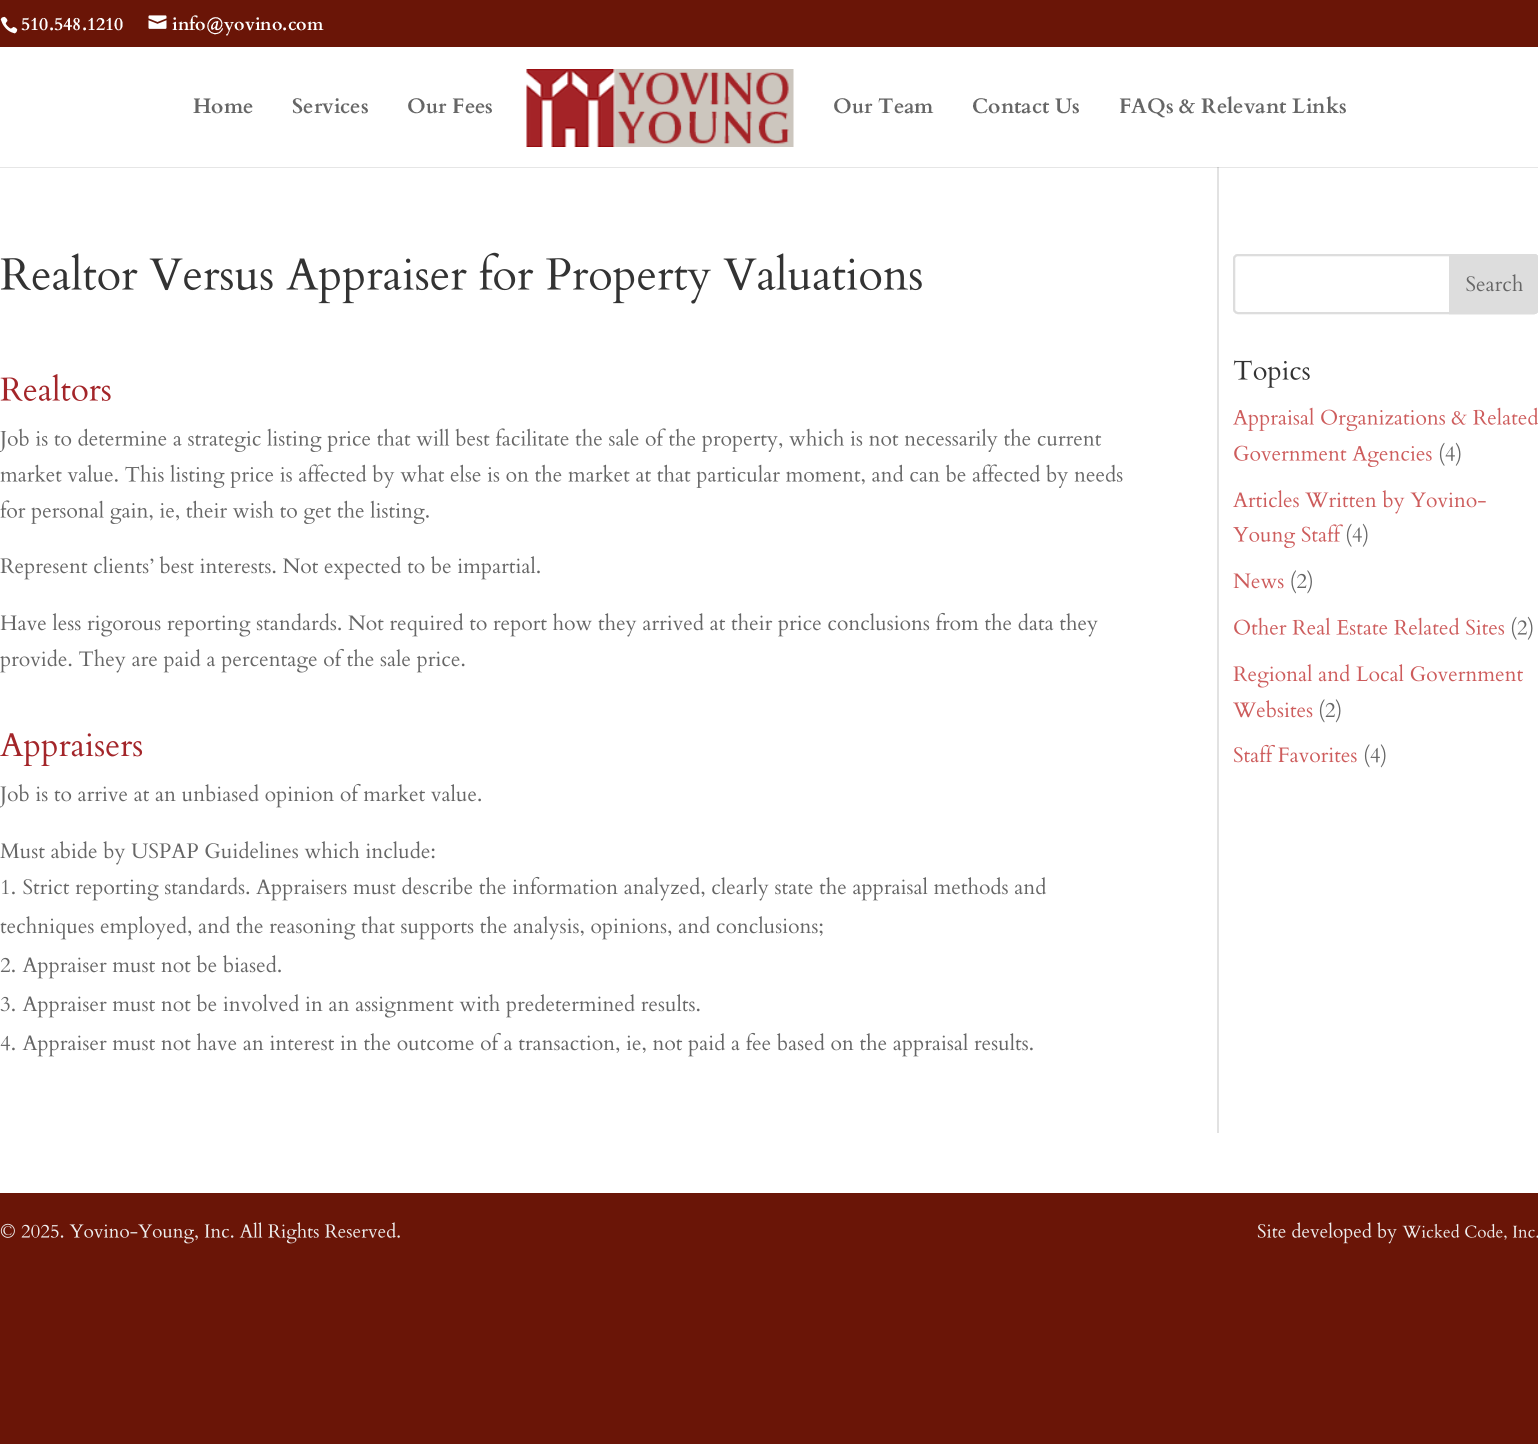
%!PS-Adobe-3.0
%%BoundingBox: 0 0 1538 1444
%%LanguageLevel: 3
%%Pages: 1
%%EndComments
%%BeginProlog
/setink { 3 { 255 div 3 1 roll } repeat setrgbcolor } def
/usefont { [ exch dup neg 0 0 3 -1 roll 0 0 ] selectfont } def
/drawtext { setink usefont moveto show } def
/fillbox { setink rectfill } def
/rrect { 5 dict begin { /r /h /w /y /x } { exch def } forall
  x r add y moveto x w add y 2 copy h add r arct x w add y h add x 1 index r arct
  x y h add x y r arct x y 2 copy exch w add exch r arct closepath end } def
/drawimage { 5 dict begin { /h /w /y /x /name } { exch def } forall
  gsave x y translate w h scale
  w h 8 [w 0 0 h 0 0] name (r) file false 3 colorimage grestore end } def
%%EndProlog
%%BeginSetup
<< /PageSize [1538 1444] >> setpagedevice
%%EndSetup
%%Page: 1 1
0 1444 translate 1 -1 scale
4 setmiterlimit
0 0 1538 1444 106 21 7 fillbox
(assets/img1.rgb) 0 16 18 18 drawimage
(510.548.1210) 21 30 /Cardo-Bold 18 255 255 255 drawtext
(assets/img2.rgb) 148 15 19 14 drawimage
(info@yovino.com) 172 30 /Cardo-Bold 18 255 255 255 drawtext
0 47 1538 120 255 255 255 fillbox
(Home) 193 113 /Cardo-Bold 21 102 102 102 drawtext
(Services) 292 113 /Cardo-Bold 21 102 102 102 drawtext
(Our Fees) 407 113 /Cardo-Bold 21 102 102 102 drawtext
(assets/img3.rgb) 526 69 268 78 drawimage
(Our Team) 833 113 /Cardo-Bold 21 102 102 102 drawtext
(Contact Us) 972 113 /Cardo-Bold 21 102 102 102 drawtext
(FAQs & Relevant Links) 1119 113 /Cardo-Bold 21 102 102 102 drawtext
0 168 1538 1025 255 255 255 fillbox
0 167 1538 1 230 230 230 fillbox
1217 167 2 966 226 226 226 fillbox
1217 167 2 1 203 203 203 fillbox
(assets/img4.rgb) 0 252 922 52 drawimage
(assets/img5.rgb) 0 374 111 27 drawimage
(assets/img6.rgb) 0 428 1102 24 drawimage
(assets/img7.rgb) 0 464 1123 24 drawimage
(assets/img8.rgb) 0 500 429 24 drawimage
(assets/img9.rgb) 0 556 540 24 drawimage
(assets/img10.rgb) 0 612 1098 25 drawimage
(assets/img11.rgb) 0 648 465 25 drawimage
(assets/img12.rgb) 0 733 143 33 drawimage
(assets/img13.rgb) 0 783 481 25 drawimage
(assets/img14.rgb) 0 841 435 24 drawimage
(assets/img15.rgb) 2 879 13 16 drawimage
(assets/img16.rgb) 23 876 1024 25 drawimage
(assets/img17.rgb) 0 916 823 24 drawimage
(assets/img18.rgb) 0 957 15 16 drawimage
(assets/img19.rgb) 22 955 259 24 drawimage
(assets/img20.rgb) 0 996 15 16 drawimage
(assets/img21.rgb) 22 994 678 24 drawimage
(assets/img22.rgb) 0 1035 15 16 drawimage
(assets/img23.rgb) 22 1032 1011 25 drawimage
221 221 221 setink
2 setlinewidth
1234 255 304 58 4 rrect stroke
1450 255 moveto 1534 255 lineto 1536 255 1538 257 1538 259 curveto 1538 309 lineto 1538 311 1536 313 1534 313 curveto 1450 313 lineto closepath gsave fill grestore
stroke
(assets/img24.rgb) 1466 274 57 18 drawimage
(assets/img25.rgb) 1233 360 77 28 drawimage
(assets/img26.rgb) 1233 407 305 24 drawimage
(assets/img27.rgb) 1234 445 198 22 drawimage
(assets/img28.rgb) 1439 442 22 24 drawimage
(assets/img29.rgb) 1233 490 253 24 drawimage
(assets/img30.rgb) 1233 524 110 24 drawimage
(assets/img28.rgb) 1346 523 22 24 drawimage
(assets/img31.rgb) 1233 573 51 16 drawimage
(assets/img32.rgb) 1291 570 21 24 drawimage
(assets/img33.rgb) 1234 617 271 18 drawimage
(assets/img34.rgb) 1511 616 22 24 drawimage
(assets/img35.rgb) 1233 664 290 24 drawimage
(assets/img36.rgb) 1233 700 80 18 drawimage
(assets/img37.rgb) 1319 699 22 24 drawimage
(assets/img38.rgb) 1233 744 124 19 drawimage
(assets/img39.rgb) 1364 744 22 24 drawimage
(assets/img40.rgb) 0 1222 400 22 drawimage
(assets/img41.rgb) 1257 1222 140 22 drawimage
(assets/img42.rgb) 1402 1223 136 17 drawimage
showpage
%%EOF
